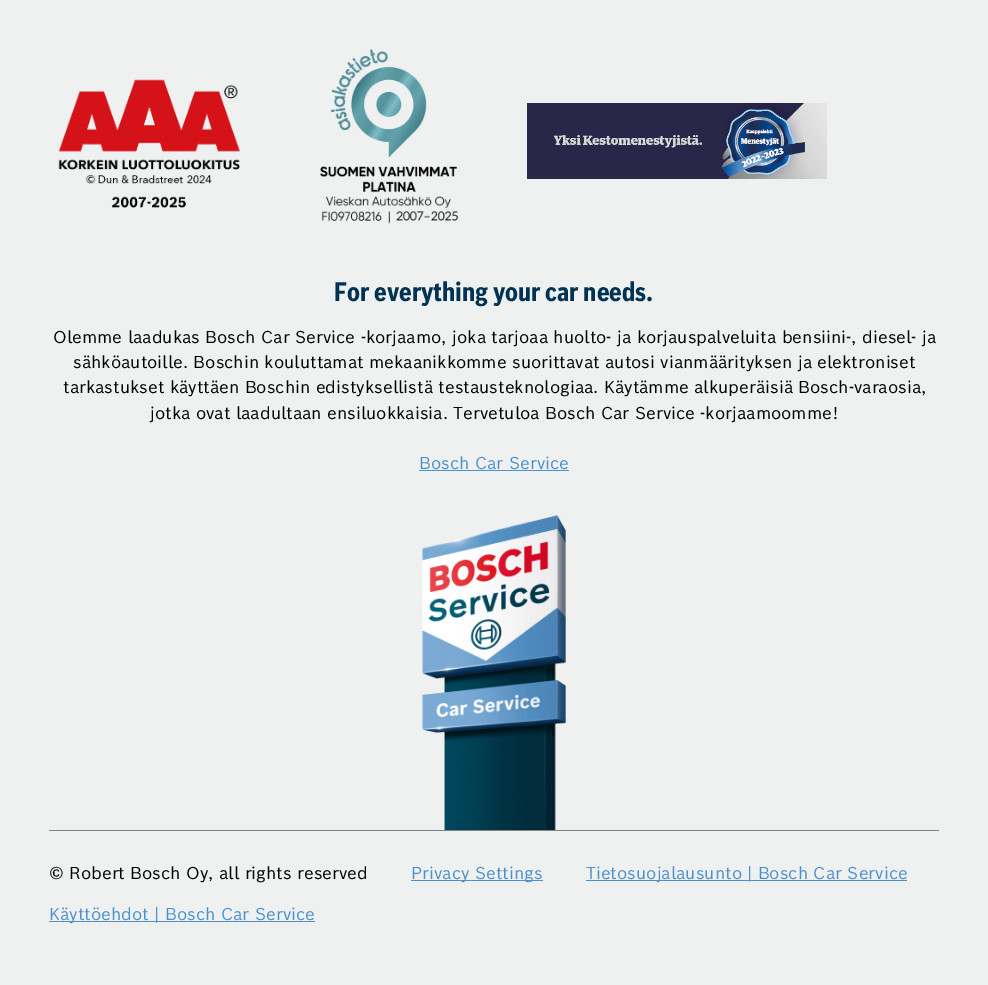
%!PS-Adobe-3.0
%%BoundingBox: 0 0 988 985
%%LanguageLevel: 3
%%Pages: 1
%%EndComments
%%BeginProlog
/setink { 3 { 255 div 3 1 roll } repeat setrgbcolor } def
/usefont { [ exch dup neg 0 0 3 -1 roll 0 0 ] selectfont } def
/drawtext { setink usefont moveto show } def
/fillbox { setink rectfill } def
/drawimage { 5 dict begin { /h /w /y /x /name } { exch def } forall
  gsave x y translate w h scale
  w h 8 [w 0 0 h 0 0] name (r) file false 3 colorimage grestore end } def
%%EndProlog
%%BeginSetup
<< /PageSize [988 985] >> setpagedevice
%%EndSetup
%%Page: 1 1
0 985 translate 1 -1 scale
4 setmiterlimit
0 0 988 985 239 241 241 fillbox
(assets/img1.rgb) 58 79 182 129 drawimage
(assets/img2.rgb) 320 49 138 175 drawimage
(assets/img3.rgb) 527 103 300 76 drawimage
49 830 890 1 131 131 131 fillbox
(For everything your car needs.) 334 301 /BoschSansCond-Bold 26.1 0 50 83 drawtext
(Olemme laadukas Bosch Car Service -korjaamo, joka tarjoaa huolto- ja korjauspalveluita bensiini-, diesel- ja) 53 343 /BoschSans-Regular 16.85 0 0 0 drawtext
(sähköautoille. Boschin kouluttamat mekaanikkomme suorittavat autosi vianmäärityksen ja elektroniset) 73 368 /BoschSans-Regular 16.85 0 0 0 drawtext
(tarkastukset käyttäen Boschin edistyksellistä testausteknologiaa. Käytämme alkuperäisiä Bosch-varaosia,) 63 393 /BoschSans-Regular 16.85 0 0 0 drawtext
(jotka ovat laadultaan ensiluokkaisia. Tervetuloa Bosch Car Service -korjaamoomme!) 150 419 /BoschSans-Regular 16.85 0 0 0 drawtext
(Bosch Car Service) 419 469 /BoschSans-Regular 16.85 76 144 205 drawtext
419 470 150 1 76 144 205 fillbox
(assets/img4.rgb) 422 515 144 315 drawimage
(© Robert Bosch Oy, all rights reserved) 49 879 /BoschSans-Regular 16.85 0 0 0 drawtext
411 880 132 1 76 144 205 fillbox
(Privacy Settings) 411 879 /BoschSans-Regular 16.85 76 144 205 drawtext
586 880 321 1 76 144 205 fillbox
(Tietosuojalausunto | Bosch Car Service) 586 879 /BoschSans-Regular 16.85 76 144 205 drawtext
49 921 266 1 76 144 205 fillbox
(Käyttöehdot | Bosch Car Service) 49 920 /BoschSans-Regular 16.85 76 144 205 drawtext
showpage
%%EOF
